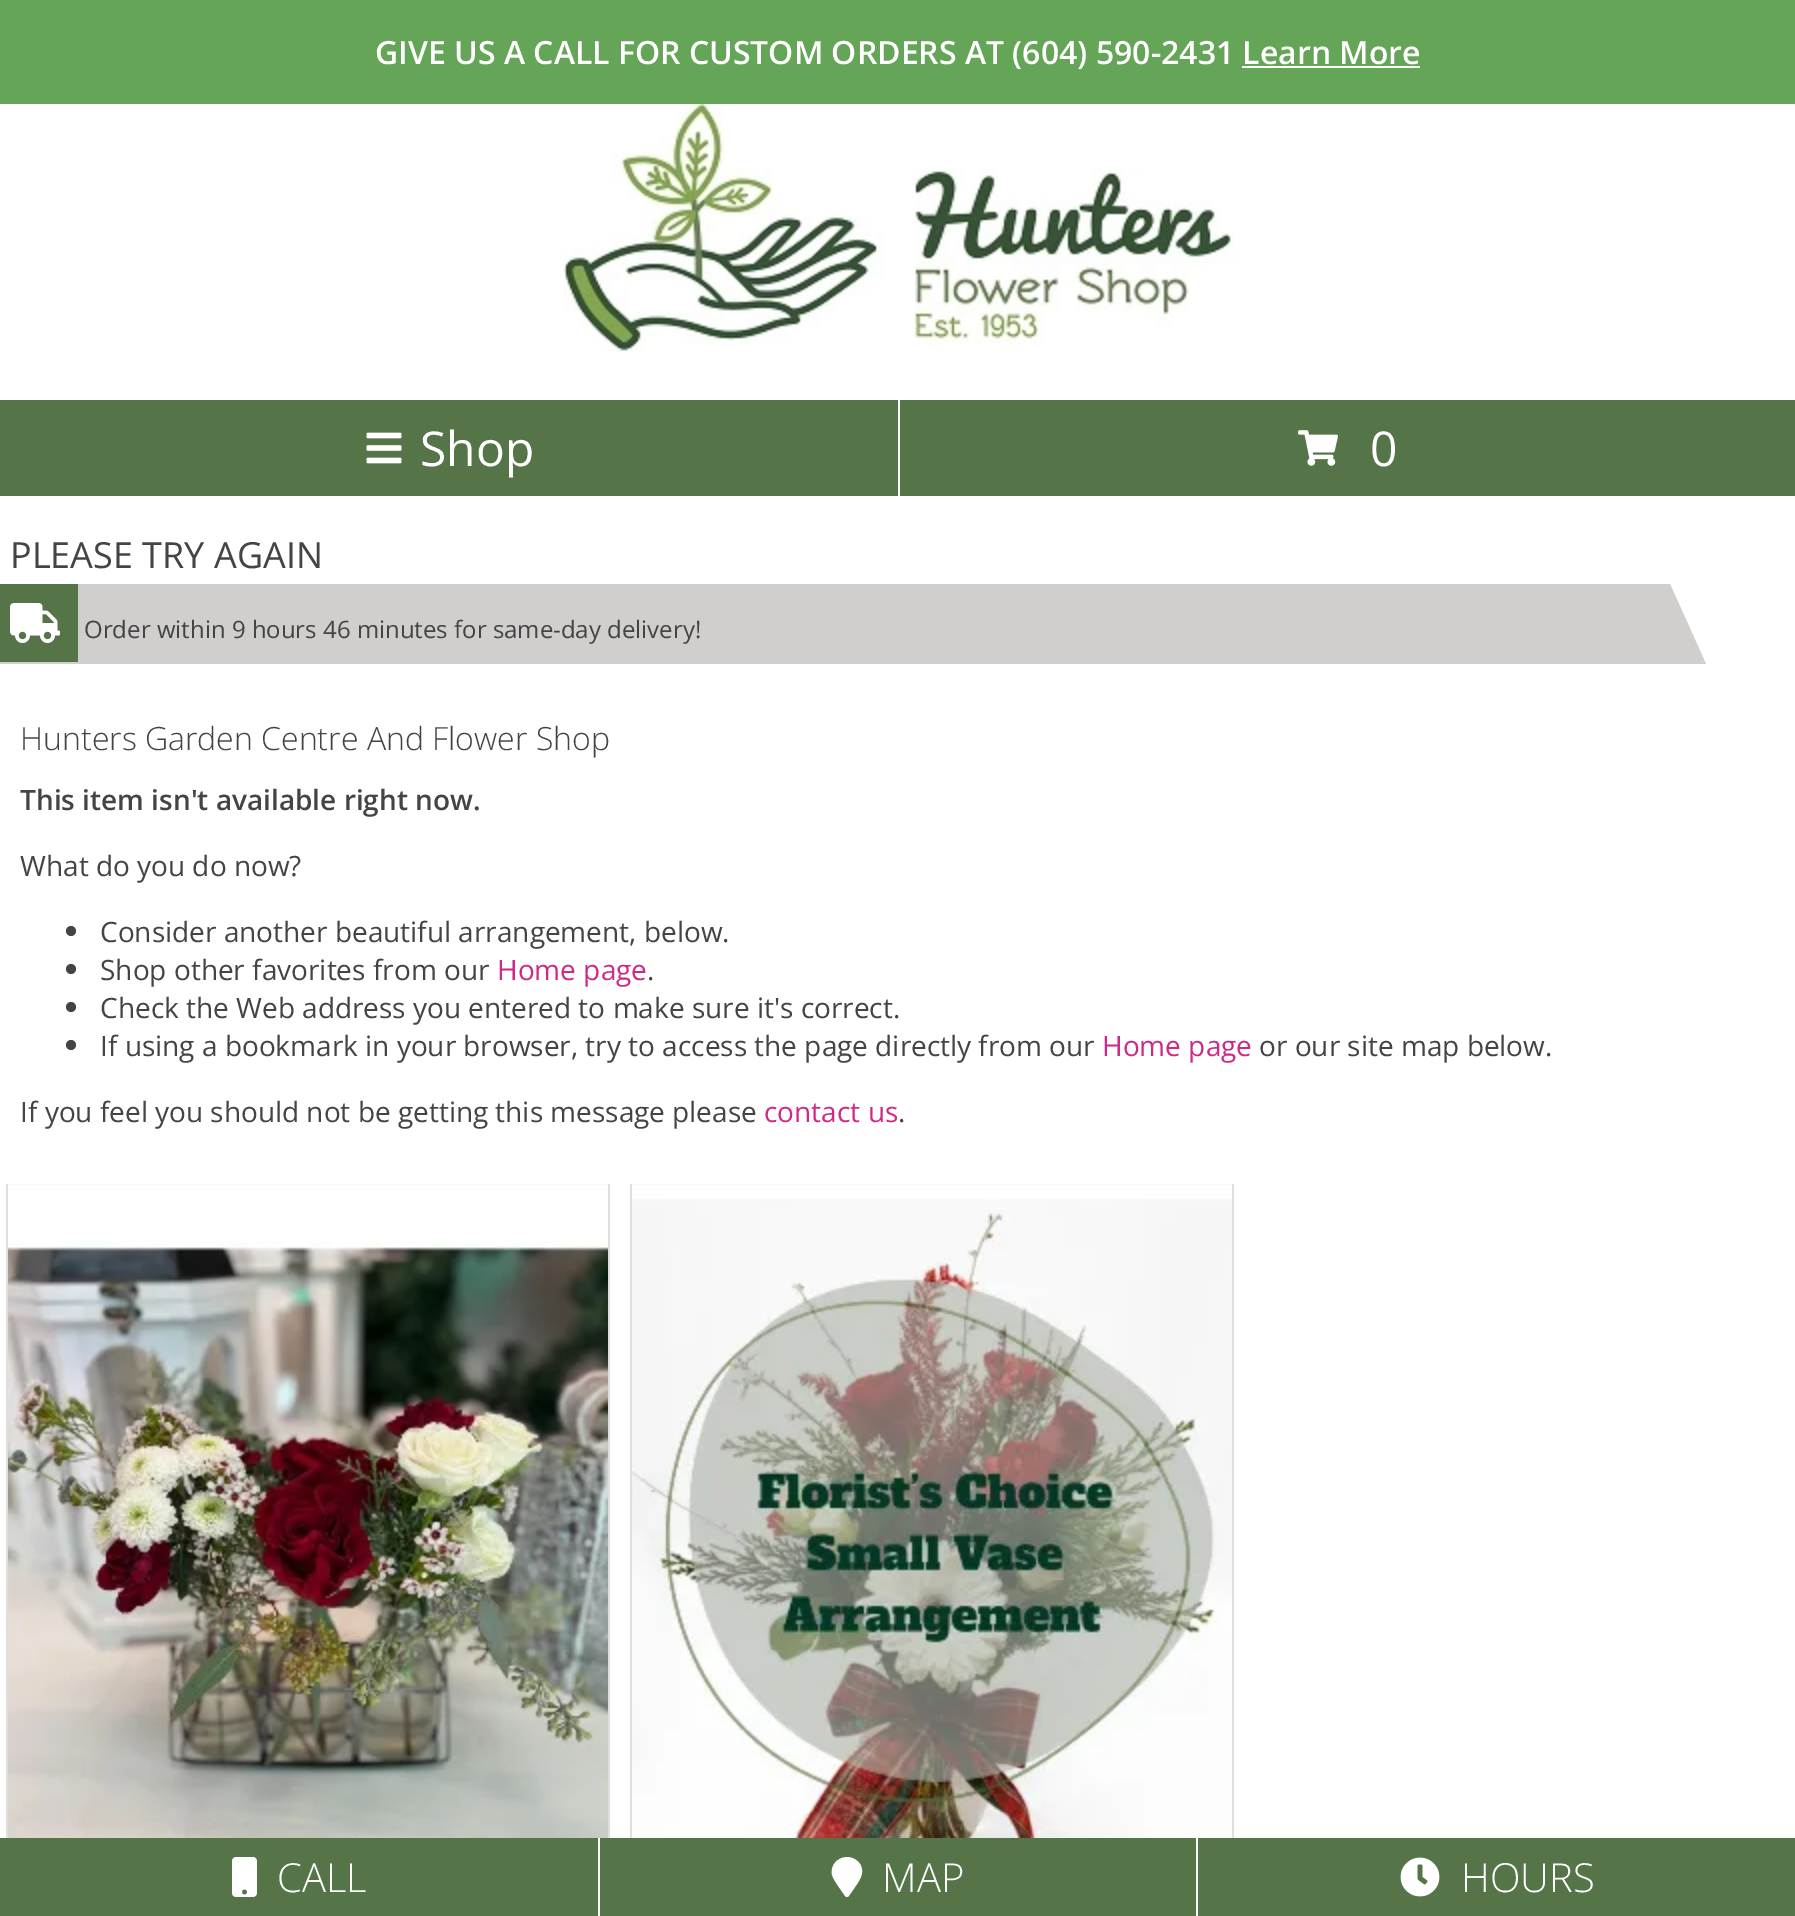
%!PS-Adobe-3.0
%%BoundingBox: 0 0 1795 1916
%%LanguageLevel: 3
%%Pages: 1
%%EndComments
%%BeginProlog
/setink { 3 { 255 div 3 1 roll } repeat setrgbcolor } def
/usefont { [ exch dup neg 0 0 3 -1 roll 0 0 ] selectfont } def
/drawtext { setink usefont moveto show } def
/fillbox { setink rectfill } def
/disc { newpath 0 360 arc closepath } def
/drawimage { 5 dict begin { /h /w /y /x /name } { exch def } forall
  gsave x y translate w h scale
  w h 8 [w 0 0 h 0 0] name (r) file false 3 colorimage grestore end } def
%%EndProlog
%%BeginSetup
<< /PageSize [1795 1916] >> setpagedevice
%%EndSetup
%%Page: 1 1
0 1916 translate 1 -1 scale
4 setmiterlimit
0 0 1795 1916 255 255 255 fillbox
0 0 1795 104 101 165 87 fillbox
(GIVE US A CALL FOR CUSTOM ORDERS AT \(604\) 590-2431 Learn More) 375 64 /OpenSans-SemiBold 32 255 255 255 drawtext
1242 66 178 2 255 255 255 fillbox
(assets/img1.rgb) 564 104 670 248 drawimage
0 400 898 96 85 116 72 fillbox
(assets/img2.rgb) 366 432 36 32 drawimage
(Shop) 420 466 /OpenSans-Regular 48 255 255 255 drawtext
900 400 895 96 85 116 72 fillbox
(assets/img3.rgb) 1298 430 40 36 drawimage
(0) 1370 466 /OpenSans-Regular 48 255 255 255 drawtext
(PLEASE TRY AGAIN) 10 568 /OpenSans-Regular 36 68 68 68 drawtext
208 207 205 setink
1706 664 moveto 0 664 lineto 0 584 lineto 1670 584 lineto closepath fill
0 584 78 78 85 116 72 fillbox
(assets/img4.rgb) 10 603 50 40 drawimage
(Order within 9 hours 46 minutes for same-day delivery!) 84 638 /OpenSans-Regular 24 68 68 68 drawtext
(Hunters Garden Centre And Flower Shop) 20 750 /OpenSans-Light 32 68 68 68 drawtext
(This item isn't available right now.) 20 810 /OpenSans-SemiBold 28 68 68 68 drawtext
(What do you do now?) 20 876 /OpenSans-Regular 28 68 68 68 drawtext
71 931 5 disc fill
(Consider another beautiful arrangement, below.) 100 942 /OpenSans-Regular 28 68 68 68 drawtext
71 969 5 disc fill
(Shop other favorites from our) 100 980 /OpenSans-Regular 28 68 68 68 drawtext
(Home page) 497 980 /OpenSans-Regular 28 205 41 133 drawtext
(.) 647 980 /OpenSans-Regular 28 68 68 68 drawtext
71 1007 5 disc fill
(Check the Web address you entered to make sure it's correct.) 100 1018 /OpenSans-Regular 28 68 68 68 drawtext
71 1045 5 disc fill
(If using a bookmark in your browser, try to access the page directly from our) 100 1056 /OpenSans-Regular 28 68 68 68 drawtext
(Home page) 1102 1056 /OpenSans-Regular 28 205 41 133 drawtext
(or our site map below.) 1259 1056 /OpenSans-Regular 28 68 68 68 drawtext
(If you feel you should not be getting this message please) 20 1122 /OpenSans-Regular 28 68 68 68 drawtext
(contact us) 764 1122 /OpenSans-Regular 28 205 41 133 drawtext
(.) 898 1122 /OpenSans-Regular 28 68 68 68 drawtext
6 1184 604 2 249 249 249 fillbox
608 1184 2 654 226 222 221 fillbox
6 1184 2 654 226 222 221 fillbox
(assets/img5.rgb) 8 1240 600 598 drawimage
630 1184 604 2 249 249 249 fillbox
1232 1184 2 654 226 222 221 fillbox
630 1184 2 654 226 222 221 fillbox
(assets/img6.rgb) 632 1198 600 640 drawimage
0 1838 598 78 85 116 72 fillbox
(assets/img7.rgb) 232 1857 25 40 drawimage
(CALL) 277 1892 /OpenSans-Light 40 255 255 255 drawtext
600 1838 596 78 85 116 72 fillbox
255 255 255 setink
845 1896 moveto 842 1891 834 1881 832 1875 curveto 829 1859 850 1850 860 1864 curveto 866 1874 858 1882 853 1890 curveto 848 1897 lineto 847 1897 846 1897 845 1896 curveto closepath fill
(MAP) 882 1892 /OpenSans-Light 40 255 255 255 drawtext
1198 1838 597 78 85 116 72 fillbox
(assets/img8.rgb) 1400 1857 40 40 drawimage
(HOURS) 1461 1892 /OpenSans-Light 40 255 255 255 drawtext
showpage
%%EOF
